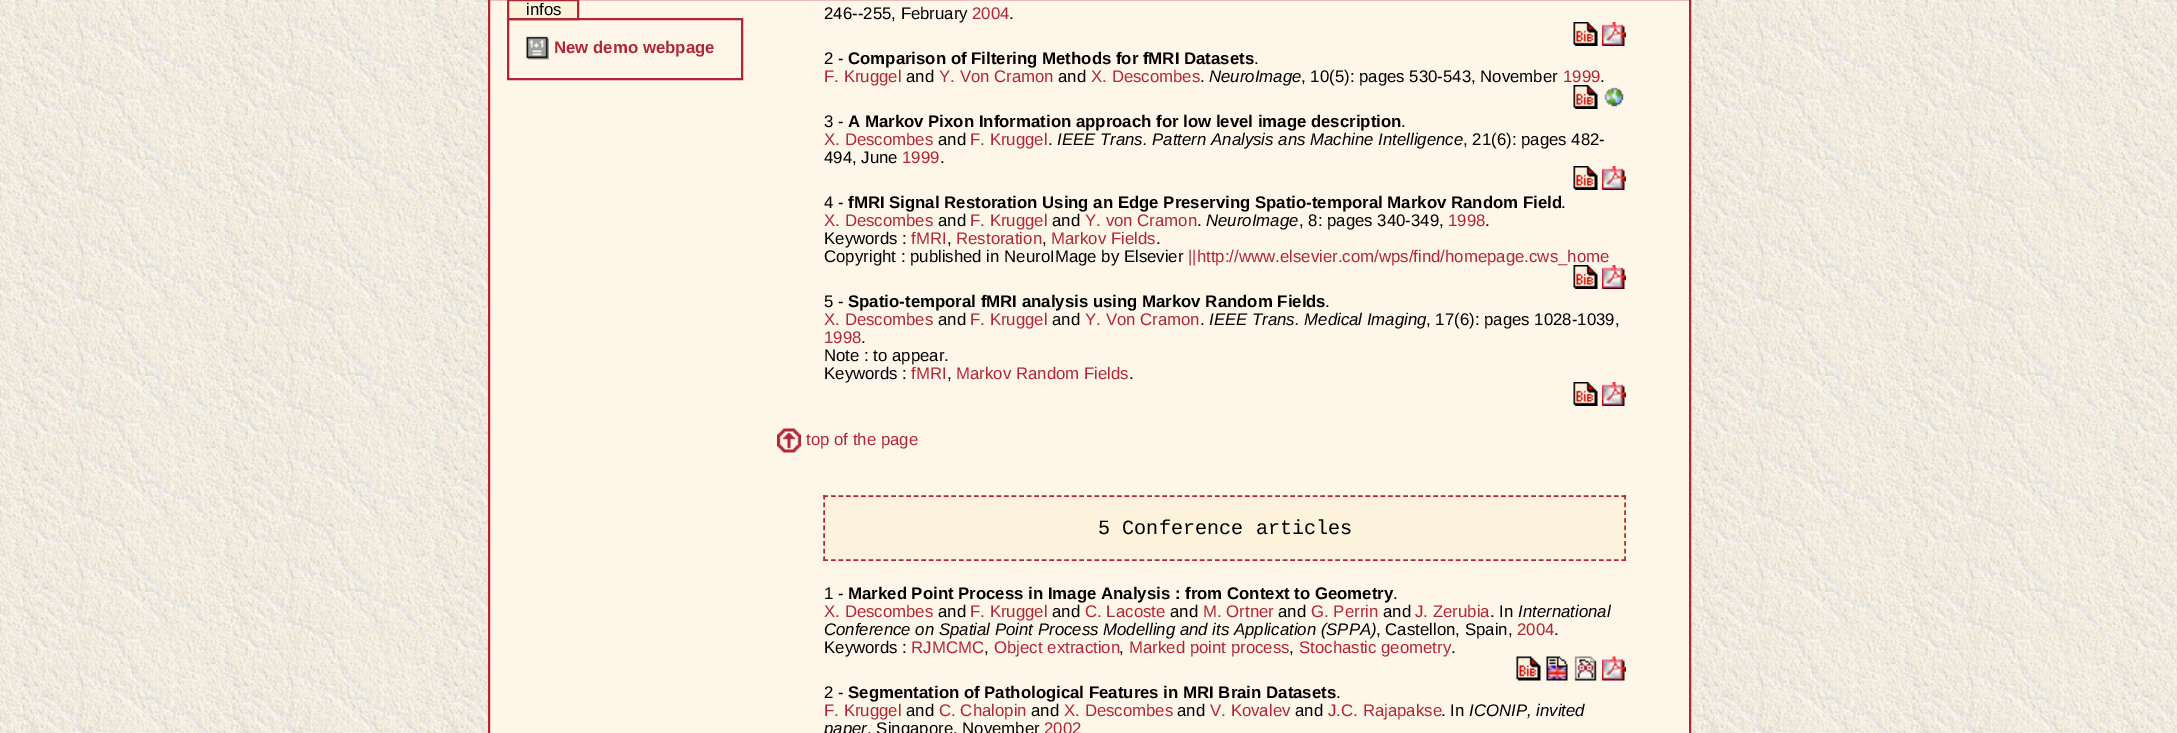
%!PS-Adobe-3.0
%%BoundingBox: 0 0 2177 733
%%LanguageLevel: 3
%%Pages: 1
%%EndComments
%%BeginProlog
/setink { 3 { 255 div 3 1 roll } repeat setrgbcolor } def
/usefont { [ exch dup neg 0 0 3 -1 roll 0 0 ] selectfont } def
/drawtext { setink usefont moveto show } def
/fillbox { setink rectfill } def
/drawimage { 5 dict begin { /h /w /y /x /name } { exch def } forall
  gsave x y translate w h scale
  w h 8 [w 0 0 h 0 0] name (r) file false 3 colorimage grestore end } def
%%EndProlog
%%BeginSetup
<< /PageSize [2177 733] >> setpagedevice
%%EndSetup
%%Page: 1 1
0 733 translate 1 -1 scale
4 setmiterlimit
0 0 2177 733 255 255 255 fillbox
(assets/img1.rgb) 0 0 2177 733 drawimage
255 246 234 setink
489 -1 moveto 1690 -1 lineto 1690 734 lineto 489 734 lineto closepath gsave fill grestore
175 38 52 setink
2 setlinewidth
stroke
253 243 221 setink
508 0 moveto 578 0 lineto 578 19 lineto 508 19 lineto closepath gsave fill grestore
175 38 52 setink
stroke
(infos) 526 15 /LiberationSans-Regular 16.8 0 0 0 drawtext
175 38 52 setink
508 19 234 60 rectstroke
(assets/img2.rgb) 526 36 23 24 drawimage
(New demo webpage) 554 53 /LiberationSans-Bold 16.8 175 38 52 drawtext
(246--255, February) 824 19 /LiberationSans-Regular 16.8 0 0 0 drawtext
(2004) 972 19 /LiberationSans-Regular 16.8 175 38 52 drawtext
(.) 1009 19 /LiberationSans-Regular 16.8 0 0 0 drawtext
(assets/img3.rgb) 1573 22 25 24 drawimage
(assets/img4.rgb) 1602 22 24 24 drawimage
(2 -) 824 64 /LiberationSans-Regular 16.8 0 0 0 drawtext
(Comparison of Filtering Methods for fMRI Datasets) 848 64 /LiberationSans-Bold 16.8 0 0 0 drawtext
(.) 1254 64 /LiberationSans-Regular 16.8 0 0 0 drawtext
(F. Kruggel) 824 82 /LiberationSans-Regular 16.8 175 38 52 drawtext
(and) 906 82 /LiberationSans-Regular 16.8 0 0 0 drawtext
(Y. Von Cramon) 939 82 /LiberationSans-Regular 16.8 175 38 52 drawtext
(and) 1058 82 /LiberationSans-Regular 16.8 0 0 0 drawtext
(X. Descombes) 1091 82 /LiberationSans-Regular 16.8 175 38 52 drawtext
(.) 1200 82 /LiberationSans-Regular 16.8 0 0 0 drawtext
(NeuroImage) 1209 82 /LiberationSans-Italic 16.8 0 0 0 drawtext
(, 10\(5\): pages 530-543, November) 1301 82 /LiberationSans-Regular 16.8 0 0 0 drawtext
(1999) 1563 82 /LiberationSans-Regular 16.8 175 38 52 drawtext
(.) 1600 82 /LiberationSans-Regular 16.8 0 0 0 drawtext
(assets/img3.rgb) 1573 85 25 24 drawimage
(assets/img5.rgb) 1604 87 20 20 drawimage
(3 -) 824 127 /LiberationSans-Regular 16.8 0 0 0 drawtext
(A Markov Pixon Information approach for low level image description) 848 127 /LiberationSans-Bold 16.8 0 0 0 drawtext
(.) 1401 127 /LiberationSans-Regular 16.8 0 0 0 drawtext
(X. Descombes) 824 145 /LiberationSans-Regular 16.8 175 38 52 drawtext
(and) 938 145 /LiberationSans-Regular 16.8 0 0 0 drawtext
(F. Kruggel) 970 145 /LiberationSans-Regular 16.8 175 38 52 drawtext
(.) 1048 145 /LiberationSans-Regular 16.8 0 0 0 drawtext
(IEEE Trans. Pattern Analysis ans Machine Intelligence) 1057 145 /LiberationSans-Italic 16.8 0 0 0 drawtext
(, 21\(6\): pages 482-) 1463 145 /LiberationSans-Regular 16.8 0 0 0 drawtext
(494, June) 824 163 /LiberationSans-Regular 16.8 0 0 0 drawtext
(1999) 902 163 /LiberationSans-Regular 16.8 175 38 52 drawtext
(.) 940 163 /LiberationSans-Regular 16.8 0 0 0 drawtext
(assets/img3.rgb) 1573 166 25 24 drawimage
(assets/img4.rgb) 1602 166 24 24 drawimage
(4 -) 824 208 /LiberationSans-Regular 16.8 0 0 0 drawtext
(fMRI Signal Restoration Using an Edge Preserving Spatio-temporal Markov Random Field) 848 208 /LiberationSans-Bold 16.8 0 0 0 drawtext
(.) 1561 208 /LiberationSans-Regular 16.8 0 0 0 drawtext
(X. Descombes) 824 226 /LiberationSans-Regular 16.8 175 38 52 drawtext
(and) 938 226 /LiberationSans-Regular 16.8 0 0 0 drawtext
(F. Kruggel) 970 226 /LiberationSans-Regular 16.8 175 38 52 drawtext
(and) 1052 226 /LiberationSans-Regular 16.8 0 0 0 drawtext
(Y. von Cramon) 1085 226 /LiberationSans-Regular 16.8 175 38 52 drawtext
(.) 1197 226 /LiberationSans-Regular 16.8 0 0 0 drawtext
(NeuroImage) 1206 226 /LiberationSans-Italic 16.8 0 0 0 drawtext
(, 8: pages 340-349,) 1299 226 /LiberationSans-Regular 16.8 0 0 0 drawtext
(1998) 1448 226 /LiberationSans-Regular 16.8 175 38 52 drawtext
(.) 1485 226 /LiberationSans-Regular 16.8 0 0 0 drawtext
(Keywords :) 824 244 /LiberationSans-Regular 16.8 0 0 0 drawtext
(fMRI) 911 244 /LiberationSans-Regular 16.8 175 38 52 drawtext
(,) 947 244 /LiberationSans-Regular 16.8 0 0 0 drawtext
(Restoration) 956 244 /LiberationSans-Regular 16.8 175 38 52 drawtext
(,) 1042 244 /LiberationSans-Regular 16.8 0 0 0 drawtext
(Markov Fields) 1051 244 /LiberationSans-Regular 16.8 175 38 52 drawtext
(.) 1156 244 /LiberationSans-Regular 16.8 0 0 0 drawtext
(Copyright : published in NeuroIMage by Elsevier) 824 262 /LiberationSans-Regular 16.8 0 0 0 drawtext
(||http://www.elsevier.com/wps/find/homepage.cws_home) 1188 262 /LiberationSans-Regular 16.8 175 38 52 drawtext
(assets/img3.rgb) 1573 265 25 24 drawimage
(assets/img4.rgb) 1602 265 24 24 drawimage
(5 -) 824 307 /LiberationSans-Regular 16.8 0 0 0 drawtext
(Spatio-temporal fMRI analysis using Markov Random Fields) 848 307 /LiberationSans-Bold 16.8 0 0 0 drawtext
(.) 1325 307 /LiberationSans-Regular 16.8 0 0 0 drawtext
(X. Descombes) 824 325 /LiberationSans-Regular 16.8 175 38 52 drawtext
(and) 938 325 /LiberationSans-Regular 16.8 0 0 0 drawtext
(F. Kruggel) 970 325 /LiberationSans-Regular 16.8 175 38 52 drawtext
(and) 1052 325 /LiberationSans-Regular 16.8 0 0 0 drawtext
(Y. Von Cramon) 1085 325 /LiberationSans-Regular 16.8 175 38 52 drawtext
(.) 1200 325 /LiberationSans-Regular 16.8 0 0 0 drawtext
(IEEE Trans. Medical Imaging) 1209 325 /LiberationSans-Italic 16.8 0 0 0 drawtext
(, 17\(6\): pages 1028-1039,) 1426 325 /LiberationSans-Regular 16.8 0 0 0 drawtext
(1998) 824 343 /LiberationSans-Regular 16.8 175 38 52 drawtext
(.) 861 343 /LiberationSans-Regular 16.8 0 0 0 drawtext
(Note : to appear.) 824 361 /LiberationSans-Regular 16.8 0 0 0 drawtext
(Keywords :) 824 379 /LiberationSans-Regular 16.8 0 0 0 drawtext
(fMRI) 911 379 /LiberationSans-Regular 16.8 175 38 52 drawtext
(,) 947 379 /LiberationSans-Regular 16.8 0 0 0 drawtext
(Markov Random Fields) 956 379 /LiberationSans-Regular 16.8 175 38 52 drawtext
(.) 1129 379 /LiberationSans-Regular 16.8 0 0 0 drawtext
(assets/img3.rgb) 1573 382 25 24 drawimage
(assets/img4.rgb) 1602 382 24 24 drawimage
(assets/img6.rgb) 777 428 24 25 drawimage
(top of the page) 806 445 /LiberationSans-Regular 16.8 175 38 52 drawtext
824 495 802 66 253 243 221 fillbox
175 38 52 setink
1.5 setlinewidth
[4.5 3.03] 0 setdash
823.5 496 moveto 1626 496 lineto stroke
[4.5 3.18] 0 setdash
1625 495 moveto 1625 561 lineto stroke
[4.5 3.03] 0 setdash
823.5 560 moveto 1626 560 lineto stroke
[4.5 3.18] 0 setdash
824 495 moveto 824 561 lineto stroke
(5 Conference articles) 1098 534 /LiberationMono-Regular 20.2 0 0 0 drawtext
(1 -) 824 599 /LiberationSans-Regular 16.8 0 0 0 drawtext
(Marked Point Process in Image Analysis : from Context to Geometry) 848 599 /LiberationSans-Bold 16.8 0 0 0 drawtext
(.) 1393 599 /LiberationSans-Regular 16.8 0 0 0 drawtext
(X. Descombes) 824 617 /LiberationSans-Regular 16.8 175 38 52 drawtext
(and) 938 617 /LiberationSans-Regular 16.8 0 0 0 drawtext
(F. Kruggel) 970 617 /LiberationSans-Regular 16.8 175 38 52 drawtext
(and) 1052 617 /LiberationSans-Regular 16.8 0 0 0 drawtext
(C. Lacoste) 1085 617 /LiberationSans-Regular 16.8 175 38 52 drawtext
(and) 1170 617 /LiberationSans-Regular 16.8 0 0 0 drawtext
(M. Ortner) 1203 617 /LiberationSans-Regular 16.8 175 38 52 drawtext
(and) 1278 617 /LiberationSans-Regular 16.8 0 0 0 drawtext
(G. Perrin) 1311 617 /LiberationSans-Regular 16.8 175 38 52 drawtext
(and) 1383 617 /LiberationSans-Regular 16.8 0 0 0 drawtext
(J. Zerubia) 1415 617 /LiberationSans-Regular 16.8 175 38 52 drawtext
(. In) 1490 617 /LiberationSans-Regular 16.8 0 0 0 drawtext
(International) 1518 617 /LiberationSans-Italic 16.8 0 0 0 drawtext
(Conference on Spatial Point Process Modelling and its Application \(SPPA\)) 824 635 /LiberationSans-Italic 16.8 0 0 0 drawtext
(, Castellon, Spain,) 1376 635 /LiberationSans-Regular 16.8 0 0 0 drawtext
(2004) 1517 635 /LiberationSans-Regular 16.8 175 38 52 drawtext
(.) 1554 635 /LiberationSans-Regular 16.8 0 0 0 drawtext
(Keywords :) 824 653 /LiberationSans-Regular 16.8 0 0 0 drawtext
(RJMCMC) 911 653 /LiberationSans-Regular 16.8 175 38 52 drawtext
(,) 984 653 /LiberationSans-Regular 16.8 0 0 0 drawtext
(Object extraction) 994 653 /LiberationSans-Regular 16.8 175 38 52 drawtext
(,) 1119 653 /LiberationSans-Regular 16.8 0 0 0 drawtext
(Marked point process) 1129 653 /LiberationSans-Regular 16.8 175 38 52 drawtext
(,) 1289 653 /LiberationSans-Regular 16.8 0 0 0 drawtext
(Stochastic geometry) 1299 653 /LiberationSans-Regular 16.8 175 38 52 drawtext
(.) 1451 653 /LiberationSans-Regular 16.8 0 0 0 drawtext
(assets/img7.rgb) 1516 656 25 25 drawimage
(assets/img8.rgb) 1546 656 22 25 drawimage
(assets/img9.rgb) 1574 656 23 25 drawimage
(assets/img10.rgb) 1602 656 24 25 drawimage
(2 -) 824 698 /LiberationSans-Regular 16.8 0 0 0 drawtext
(Segmentation of Pathological Features in MRI Brain Datasets) 848 698 /LiberationSans-Bold 16.8 0 0 0 drawtext
(.) 1336 698 /LiberationSans-Regular 16.8 0 0 0 drawtext
(F. Kruggel) 824 716 /LiberationSans-Regular 16.8 175 38 52 drawtext
(and) 906 716 /LiberationSans-Regular 16.8 0 0 0 drawtext
(C. Chalopin) 939 716 /LiberationSans-Regular 16.8 175 38 52 drawtext
(and) 1031 716 /LiberationSans-Regular 16.8 0 0 0 drawtext
(X. Descombes) 1064 716 /LiberationSans-Regular 16.8 175 38 52 drawtext
(and) 1177 716 /LiberationSans-Regular 16.8 0 0 0 drawtext
(V. Kovalev) 1210 716 /LiberationSans-Regular 16.8 175 38 52 drawtext
(and) 1295 716 /LiberationSans-Regular 16.8 0 0 0 drawtext
(J.C. Rajapakse) 1328 716 /LiberationSans-Regular 16.8 175 38 52 drawtext
(. In) 1441 716 /LiberationSans-Regular 16.8 0 0 0 drawtext
(ICONIP, invited) 1469 716 /LiberationSans-Italic 16.8 0 0 0 drawtext
(paper) 824 734 /LiberationSans-Italic 16.8 0 0 0 drawtext
(, Singapore, November) 867 734 /LiberationSans-Regular 16.8 0 0 0 drawtext
(2002) 1044 734 /LiberationSans-Regular 16.8 175 38 52 drawtext
showpage
%%EOF
